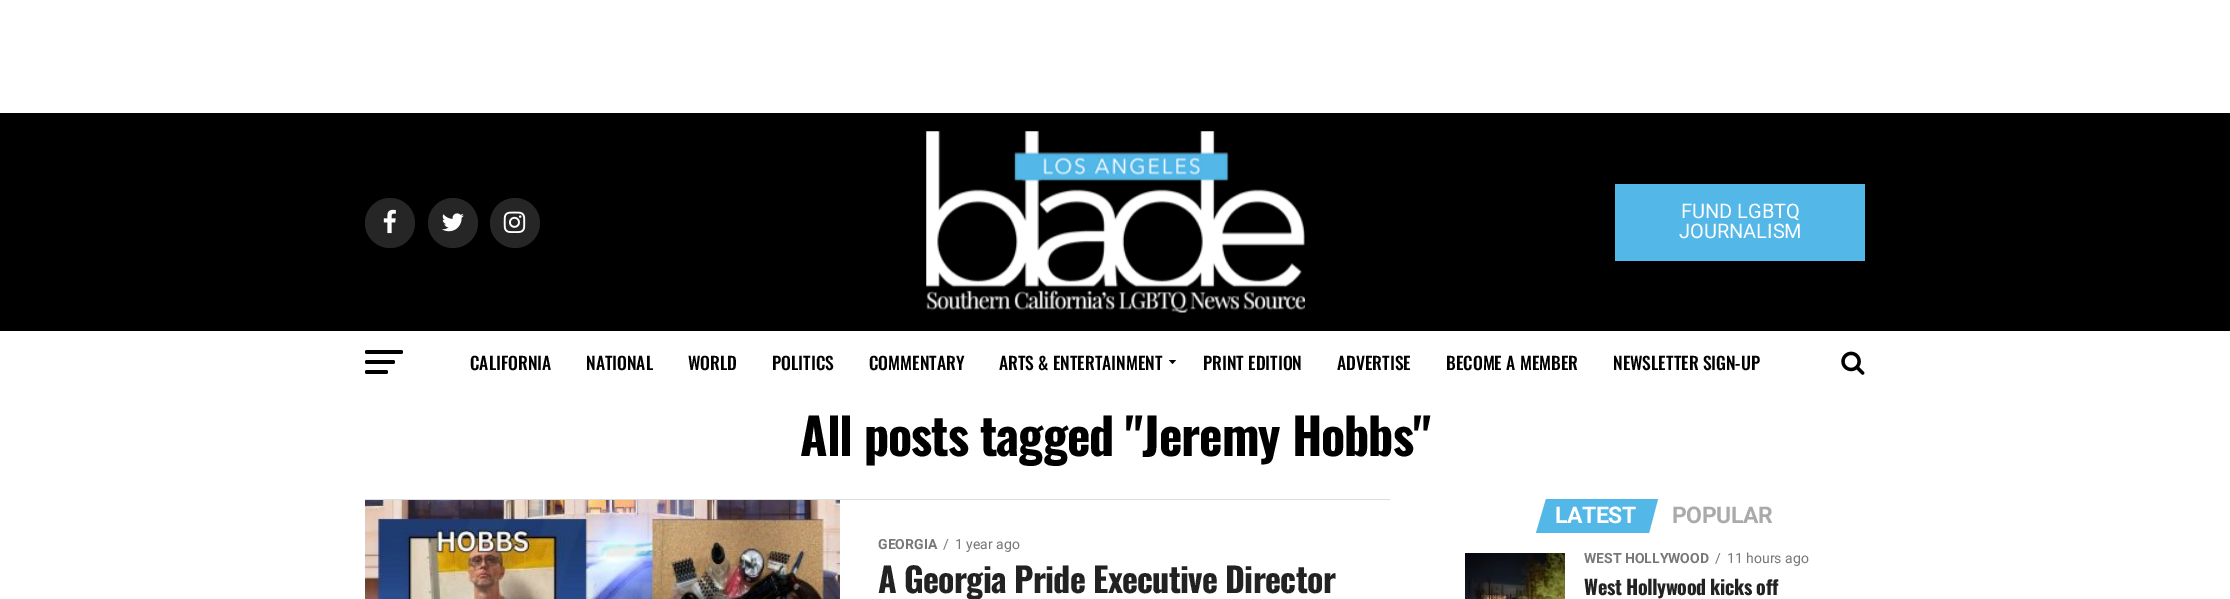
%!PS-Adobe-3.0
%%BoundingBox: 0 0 2230 599
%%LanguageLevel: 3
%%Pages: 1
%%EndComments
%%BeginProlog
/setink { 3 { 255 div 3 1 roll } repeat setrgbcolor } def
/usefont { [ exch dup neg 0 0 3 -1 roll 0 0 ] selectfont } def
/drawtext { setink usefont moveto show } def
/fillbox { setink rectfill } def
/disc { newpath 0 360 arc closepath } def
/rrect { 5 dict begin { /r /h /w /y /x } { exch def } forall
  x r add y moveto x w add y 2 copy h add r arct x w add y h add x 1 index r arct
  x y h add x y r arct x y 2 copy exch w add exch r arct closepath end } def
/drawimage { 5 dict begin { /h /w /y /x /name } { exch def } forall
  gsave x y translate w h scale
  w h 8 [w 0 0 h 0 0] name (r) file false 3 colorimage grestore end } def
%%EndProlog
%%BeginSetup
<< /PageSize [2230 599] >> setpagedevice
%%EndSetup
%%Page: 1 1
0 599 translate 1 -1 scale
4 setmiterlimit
0 0 2230 599 255 255 255 fillbox
0 113 2230 218 0 0 0 fillbox
38 38 38 setink
390 223 25 disc fill
(assets/img1.rgb) 383 209 13 25 drawimage
453 223 25 disc fill
(assets/img2.rgb) 442 213 22 19 drawimage
515 223 25 disc fill
(assets/img3.rgb) 503 211 23 22 drawimage
(assets/img4.rgb) 926 131 379 182 drawimage
1615 184 250 77 83 183 232 fillbox
(FUND LGBTQ) 1681 218 /Roboto-Regular 20 255 255 255 drawtext
(JOURNALISM) 1679 238 /Roboto-Regular 20 255 255 255 drawtext
0 0 0 setink
365 350 38 4 2 rrect fill
365 360 30 4 2 rrect fill
365 370 23 4 2 rrect fill
(CALIFORNIA) 470 370 /Oswald-Medium 17.5 0 0 0 drawtext
(NATIONAL) 586 370 /Oswald-Medium 17.5 0 0 0 drawtext
(WORLD) 688 370 /Oswald-Medium 17.5 0 0 0 drawtext
(POLITICS) 772 370 /Oswald-Medium 17.5 0 0 0 drawtext
(COMMENTARY) 869 370 /Oswald-Medium 17.5 0 0 0 drawtext
(ARTS & ENTERTAINMENT) 999 370 /Oswald-Medium 17.5 0 0 0 drawtext
1169 360 moveto 1176 360 lineto 1172.5 364 lineto closepath fill
(PRINT EDITION) 1203 370 /Oswald-Medium 17.5 0 0 0 drawtext
(ADVERTISE) 1337 370 /Oswald-Medium 17.5 0 0 0 drawtext
(BECOME A MEMBER) 1446 370 /Oswald-Medium 17.5 0 0 0 drawtext
(NEWSLETTER SIGN-UP) 1613 370 /Oswald-Medium 17.5 0 0 0 drawtext
(assets/img5.rgb) 1841 351 24 24 drawimage
/Oswald-Bold 50 usefont
800 456 moveto -1 0 (All posts tagged "Jeremy Hobbs") ashow
365 499 1025 1 221 221 221 fillbox
(assets/img6.rgb) 365 500 475 99 drawimage
(GEORGIA) 878 549 /Roboto-Bold 14 119 119 119 drawtext
(/) 943 549 /Roboto-Regular 14 119 119 119 drawtext
(1 year ago) 955 549 /Roboto-Regular 14 119 119 119 drawtext
/Oswald-Bold 34 usefont
34 34 34 setink
878 593 moveto -0.7 0 (A Georgia Pride Executive Director) ashow
83 183 232 setink
1546 499 moveto 1658 499 lineto 1649 533 lineto 1536 533 lineto closepath fill
/Roboto-Bold 23 usefont
255 255 255 setink
1555 523 moveto -0.5 0 (LATEST) ashow
170 170 170 setink
1672 523 moveto -0.5 0 (POPULAR) ashow
(assets/img7.rgb) 1465 553 100 46 drawimage
(WEST HOLLYWOOD) 1584 563 /Roboto-Bold 14 119 119 119 drawtext
(/) 1715 563 /Roboto-Regular 14 119 119 119 drawtext
(11 hours ago) 1727 563 /Roboto-Regular 14 119 119 119 drawtext
/Oswald-Bold 20 usefont
34 34 34 setink
1584 595 moveto -0.4 0 (West Hollywood kicks off) ashow
showpage
%%EOF
